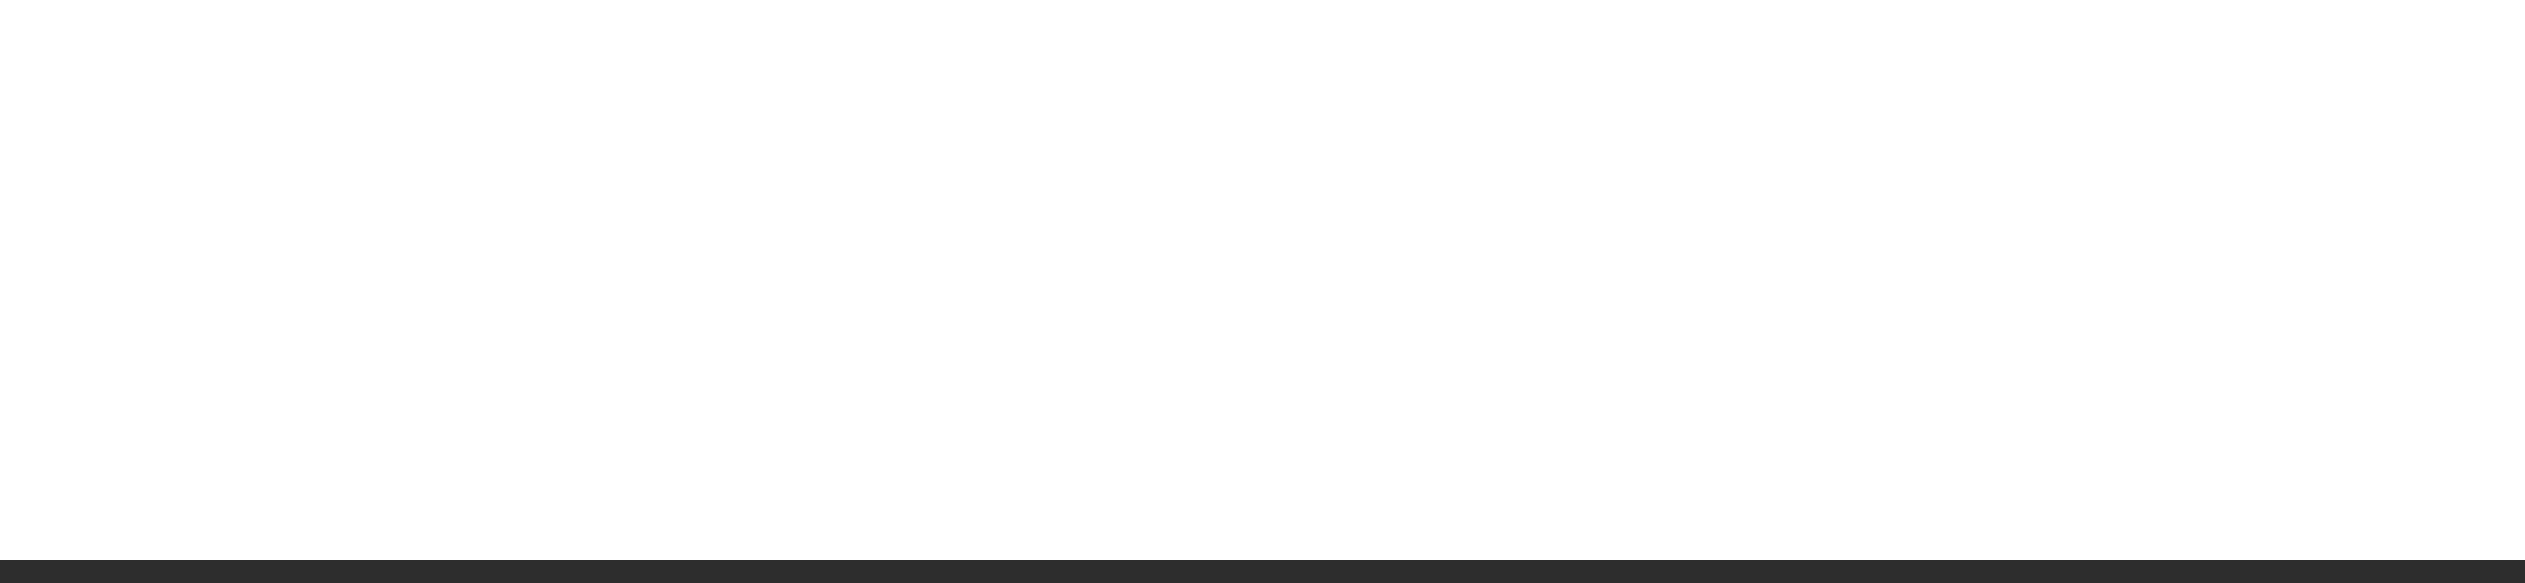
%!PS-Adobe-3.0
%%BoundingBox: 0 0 2525 583
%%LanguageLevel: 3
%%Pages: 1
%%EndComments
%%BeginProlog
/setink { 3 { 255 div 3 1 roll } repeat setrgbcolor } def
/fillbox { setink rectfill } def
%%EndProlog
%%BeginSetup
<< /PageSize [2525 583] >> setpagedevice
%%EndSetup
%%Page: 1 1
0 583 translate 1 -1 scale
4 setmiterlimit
0 0 2525 583 255 255 255 fillbox
0 560 2525 23 45 45 45 fillbox
showpage
%%EOF
